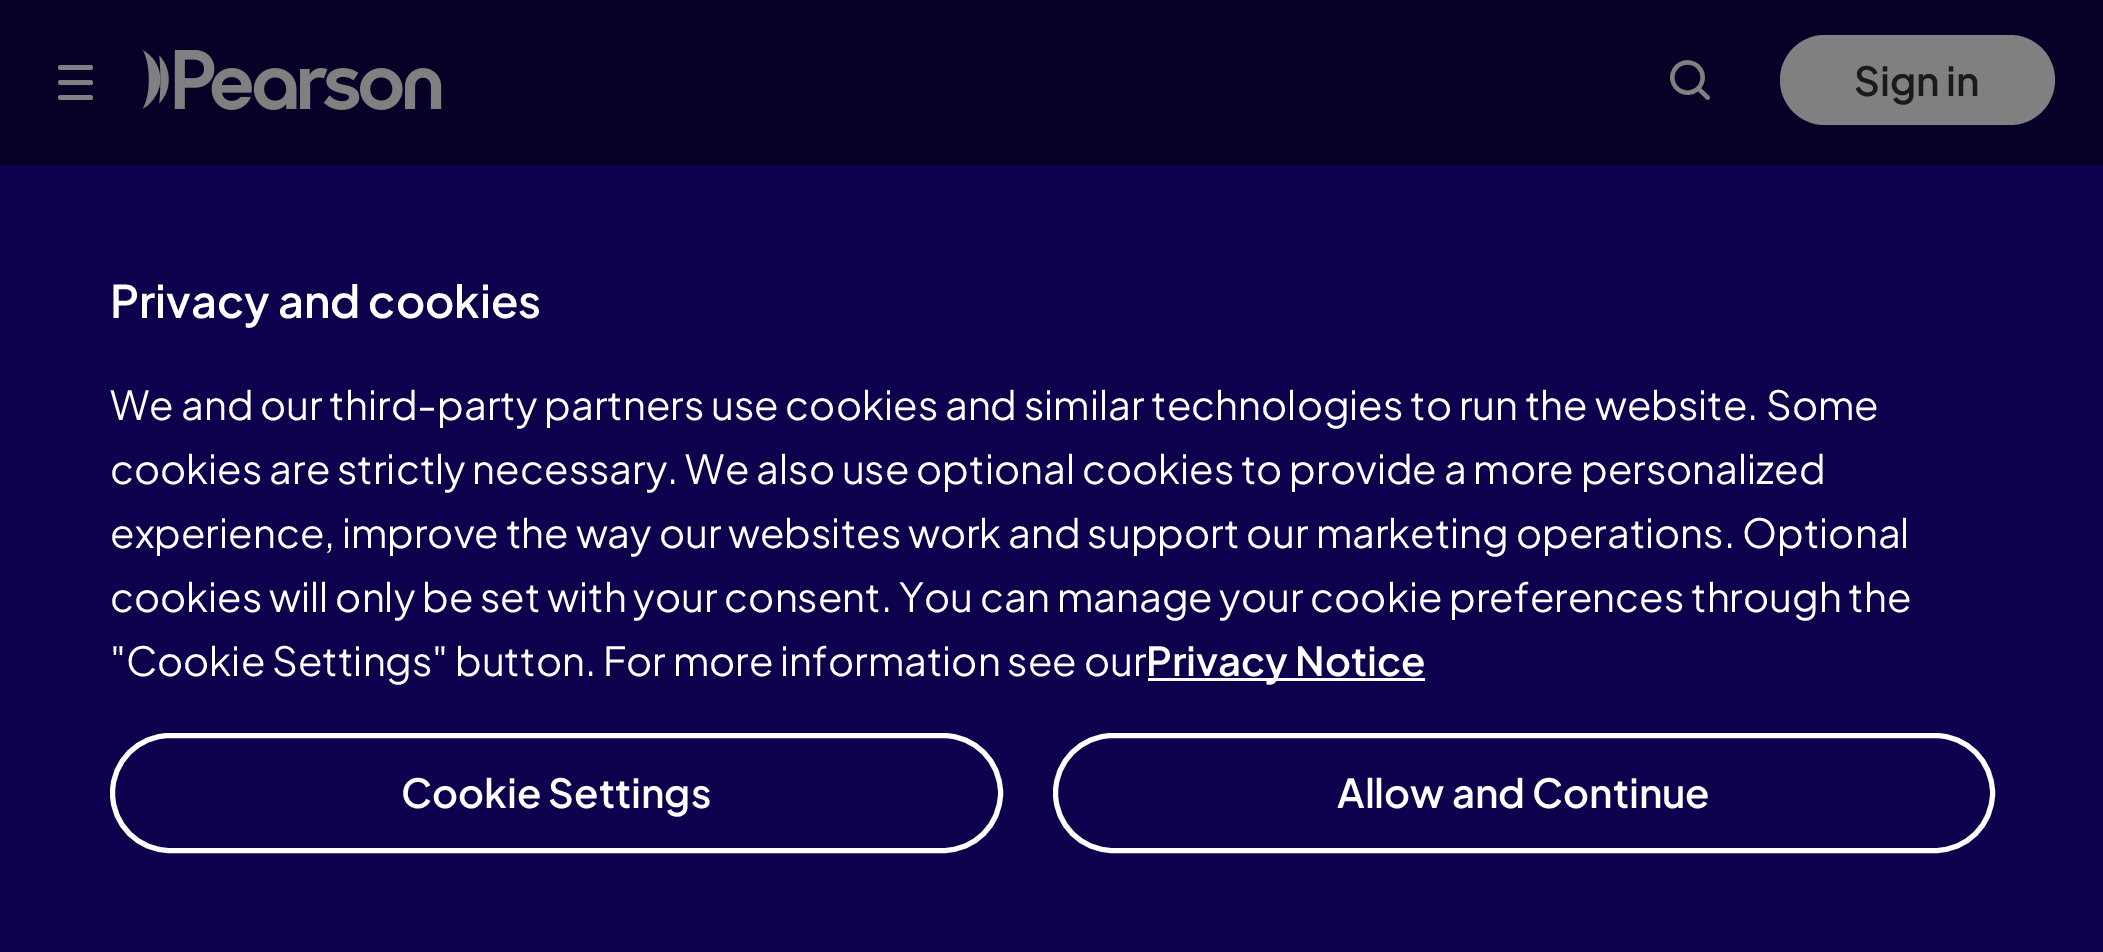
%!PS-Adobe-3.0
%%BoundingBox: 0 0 2103 952
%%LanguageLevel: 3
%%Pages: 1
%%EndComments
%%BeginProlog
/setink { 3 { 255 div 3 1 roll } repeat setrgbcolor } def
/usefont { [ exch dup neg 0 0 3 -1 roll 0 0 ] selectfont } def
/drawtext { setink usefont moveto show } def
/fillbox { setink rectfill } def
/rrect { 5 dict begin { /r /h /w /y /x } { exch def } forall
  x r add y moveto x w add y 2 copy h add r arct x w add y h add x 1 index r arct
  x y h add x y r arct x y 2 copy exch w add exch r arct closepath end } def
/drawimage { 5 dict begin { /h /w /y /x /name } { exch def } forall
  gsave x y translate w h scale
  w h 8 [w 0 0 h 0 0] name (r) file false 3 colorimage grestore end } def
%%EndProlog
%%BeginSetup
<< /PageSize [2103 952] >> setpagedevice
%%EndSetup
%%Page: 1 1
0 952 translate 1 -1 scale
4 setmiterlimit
0 0 2103 952 7 0 39 fillbox
128 128 128 setink
58 80 35 5 2.5 rrect fill
58 65 35 5 2.5 rrect fill
58 95 35 5 2.5 rrect fill
(assets/img1.rgb) 143 50 299 60 drawimage
(assets/img2.rgb) 1670 60 40 40 drawimage
1780 35 275 90 45 rrect fill
(Sign in) 1854 96 /PlusJakartaSans-SemiBold 40 26 26 26 drawtext
0 165 2103 787 13 0 77 fillbox
(Privacy and cookies) 110 318 /PlusJakartaSans-SemiBold 45 255 255 255 drawtext
(We and our third-party partners use cookies and similar technologies to run the website. Some) 110 420 /PlusJakartaSans-Regular 40 255 255 255 drawtext
(cookies are strictly necessary. We also use optional cookies to provide a more personalized) 110 484 /PlusJakartaSans-Regular 40 255 255 255 drawtext
(experience, improve the way our websites work and support our marketing operations. Optional) 110 548 /PlusJakartaSans-Regular 40 255 255 255 drawtext
(cookies will only be set with your consent. You can manage your cookie preferences through the) 110 612 /PlusJakartaSans-Regular 40 255 255 255 drawtext
("Cookie Settings" button. For more information see our) 110 676 /PlusJakartaSans-Regular 40 255 255 255 drawtext
1148 678 277 3 254 254 254 fillbox
(Privacy Notice) 1146 676 /PlusJakartaSans-SemiBold 40 255 255 255 drawtext
5 setlinewidth
112.5 735.5 888 115 57.5 rrect stroke
(Cookie Settings) 401 808 /PlusJakartaSans-SemiBold 40 255 255 255 drawtext
1055.5 735.5 937 115 57.5 rrect stroke
(Allow and Continue) 1337 808 /PlusJakartaSans-SemiBold 40 255 255 255 drawtext
showpage
%%EOF
